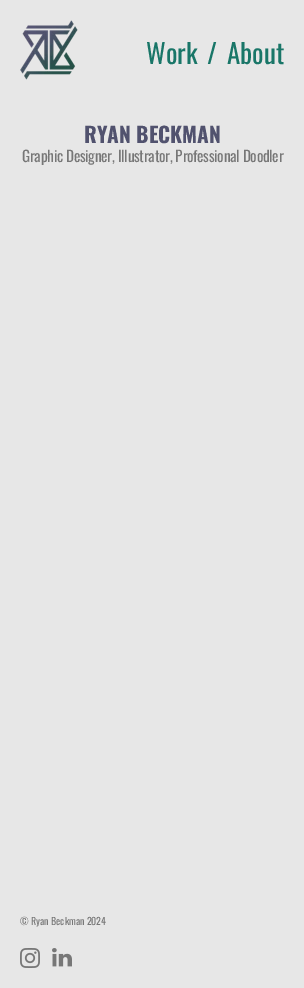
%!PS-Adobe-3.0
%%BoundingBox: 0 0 304 988
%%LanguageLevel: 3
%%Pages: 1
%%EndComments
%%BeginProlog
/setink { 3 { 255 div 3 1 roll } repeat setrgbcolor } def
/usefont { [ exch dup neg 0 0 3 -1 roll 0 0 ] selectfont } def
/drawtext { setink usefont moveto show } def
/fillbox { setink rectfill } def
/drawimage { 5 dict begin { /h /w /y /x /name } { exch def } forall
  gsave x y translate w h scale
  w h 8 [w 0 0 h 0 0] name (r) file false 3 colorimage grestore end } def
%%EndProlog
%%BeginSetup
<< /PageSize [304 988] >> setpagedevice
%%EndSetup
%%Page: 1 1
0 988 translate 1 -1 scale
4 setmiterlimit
0 0 304 988 231 231 231 fillbox
(assets/img1.rgb) 20 20 58 60 drawimage
(Work) 146 64 /Oswald-Regular 27 25 118 104 drawtext
(/) 207 64 /Oswald-Regular 27 25 118 104 drawtext
(About) 227 64 /Oswald-Regular 27 25 118 104 drawtext
(RYAN BECKMAN) 84 143 /Oswald-Bold 21.25 81 82 110 drawtext
/Oswald-Regular 15.25 usefont
119 119 119 setink
22 162 moveto -0.3 0 (Graphic Designer, Illustrator, Professional Doodler) ashow
(© Ryan Beckman 2024) 20 925 /Oswald-Regular 10 119 119 119 drawtext
(assets/img2.rgb) 20 948 20 20 drawimage
(assets/img3.rgb) 52 948 20 19 drawimage
showpage
%%EOF
